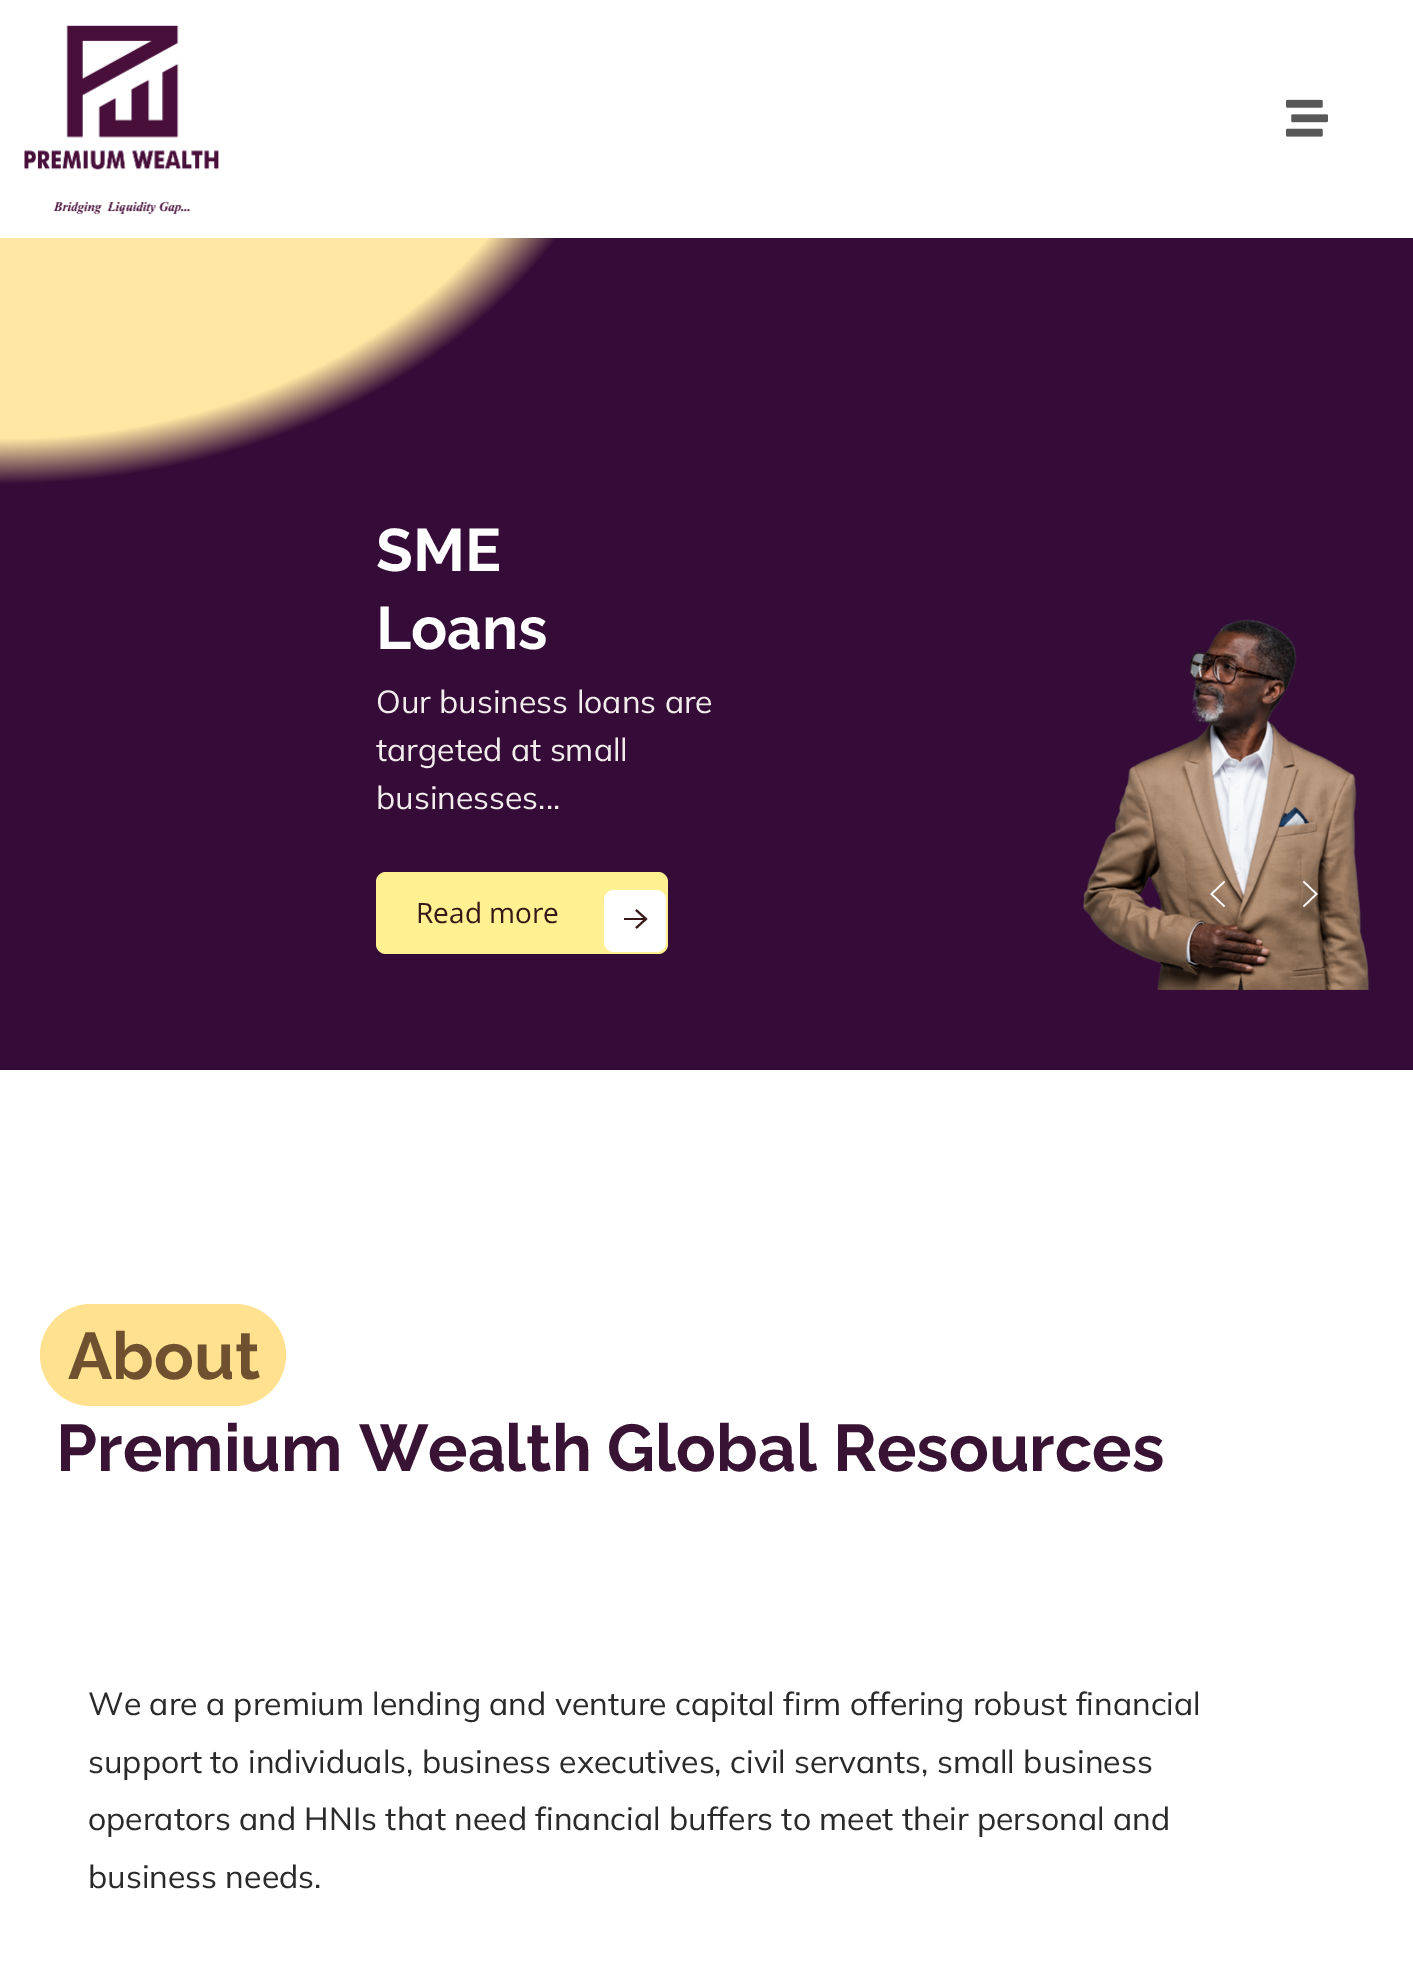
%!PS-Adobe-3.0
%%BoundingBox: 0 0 1413 1963
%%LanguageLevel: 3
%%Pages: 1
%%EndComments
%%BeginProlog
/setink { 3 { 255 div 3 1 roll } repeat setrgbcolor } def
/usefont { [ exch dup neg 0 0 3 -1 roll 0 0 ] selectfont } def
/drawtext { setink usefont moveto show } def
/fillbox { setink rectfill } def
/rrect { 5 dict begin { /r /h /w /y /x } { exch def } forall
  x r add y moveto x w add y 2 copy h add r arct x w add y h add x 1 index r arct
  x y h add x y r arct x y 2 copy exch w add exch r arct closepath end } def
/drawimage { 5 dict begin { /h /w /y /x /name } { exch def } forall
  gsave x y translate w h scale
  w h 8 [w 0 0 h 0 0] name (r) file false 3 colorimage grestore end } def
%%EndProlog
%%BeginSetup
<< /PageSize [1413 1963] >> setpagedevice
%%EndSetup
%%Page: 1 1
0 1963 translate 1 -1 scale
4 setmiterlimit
0 0 1413 1963 255 255 255 fillbox
gsave 0 238 moveto 1413 238 lineto 1413 1070 lineto 0 1070 lineto closepath clip newpath 0 0 translate 2000 1513 scale
<< /ShadingType 3 /ColorSpace /DeviceRGB /Coords [0 0 0 0 0 1] /Extend [true true] /Function << /FunctionType 3 /Domain [0 1] /Functions [<< /FunctionType 2 /Domain [0 1] /C0 [1 0.902 0.639] /C1 [1 0.902 0.639] /N 1 >> << /FunctionType 2 /Domain [0 1] /C0 [1 0.902 0.639] /C1 [0.204 0.047 0.216] /N 1 >> << /FunctionType 2 /Domain [0 1] /C0 [0.204 0.047 0.216] /C1 [0.204 0.047 0.216] /N 1 >>] /Bounds [0.29 0.32] /Encode [0 1 0 1 0 1] >> >> shfill grestore
(assets/img1.rgb) 24 25 195 190 drawimage
(assets/img2.rgb) 1286 99 42 38 drawimage
(SME) 376 571 /Raleway-Bold 60 255 255 255 drawtext
(Loans) 376 649 /Raleway-Bold 60 255 255 255 drawtext
(Our business loans are) 376 713 /Mulish-Regular 32 243 236 236 drawtext
(targeted at small) 376 761 /Mulish-Regular 32 243 236 236 drawtext
(businesses...) 376 809 /Mulish-Regular 32 243 236 236 drawtext
255 241 146 setink
376 872 292 82 10 rrect fill
(Read more) 416 923 /OpenSans-Regular 28 56 23 23 drawtext
255 255 255 setink
604 890 62 62 10 rrect fill
56 23 23 setink
2 setlinewidth
636 910 moveto 646 919 lineto 636 928 lineto stroke
624 918 22 2 56 23 23 fillbox
(assets/img3.rgb) 1083 619 286 371 drawimage
255 255 255 setink
1.6 setlinewidth
1224.5 881.5 moveto 1211.5 894 lineto 1224.5 906.5 lineto stroke
1303.5 906.5 moveto 1316.5 894 lineto 1303.5 881.5 lineto stroke
255 225 144 setink
40 1304 246 102 51 rrect fill
(About) 68 1379 /Raleway-Bold 66 111 81 48 drawtext
(Premium Wealth Global Resources) 56 1471 /Raleway-Bold 66 57 19 51 drawtext
(We are a premium lending and venture capital firm offering robust financial) 88 1715 /Mulish-Regular 32 42 42 42 drawtext
(support to individuals, business executives, civil servants, small business) 88 1773 /Mulish-Regular 32 42 42 42 drawtext
(operators and HNIs that need financial buffers to meet their personal and) 88 1830 /Mulish-Regular 32 42 42 42 drawtext
(business needs.) 88 1888 /Mulish-Regular 32 42 42 42 drawtext
showpage
%%EOF
